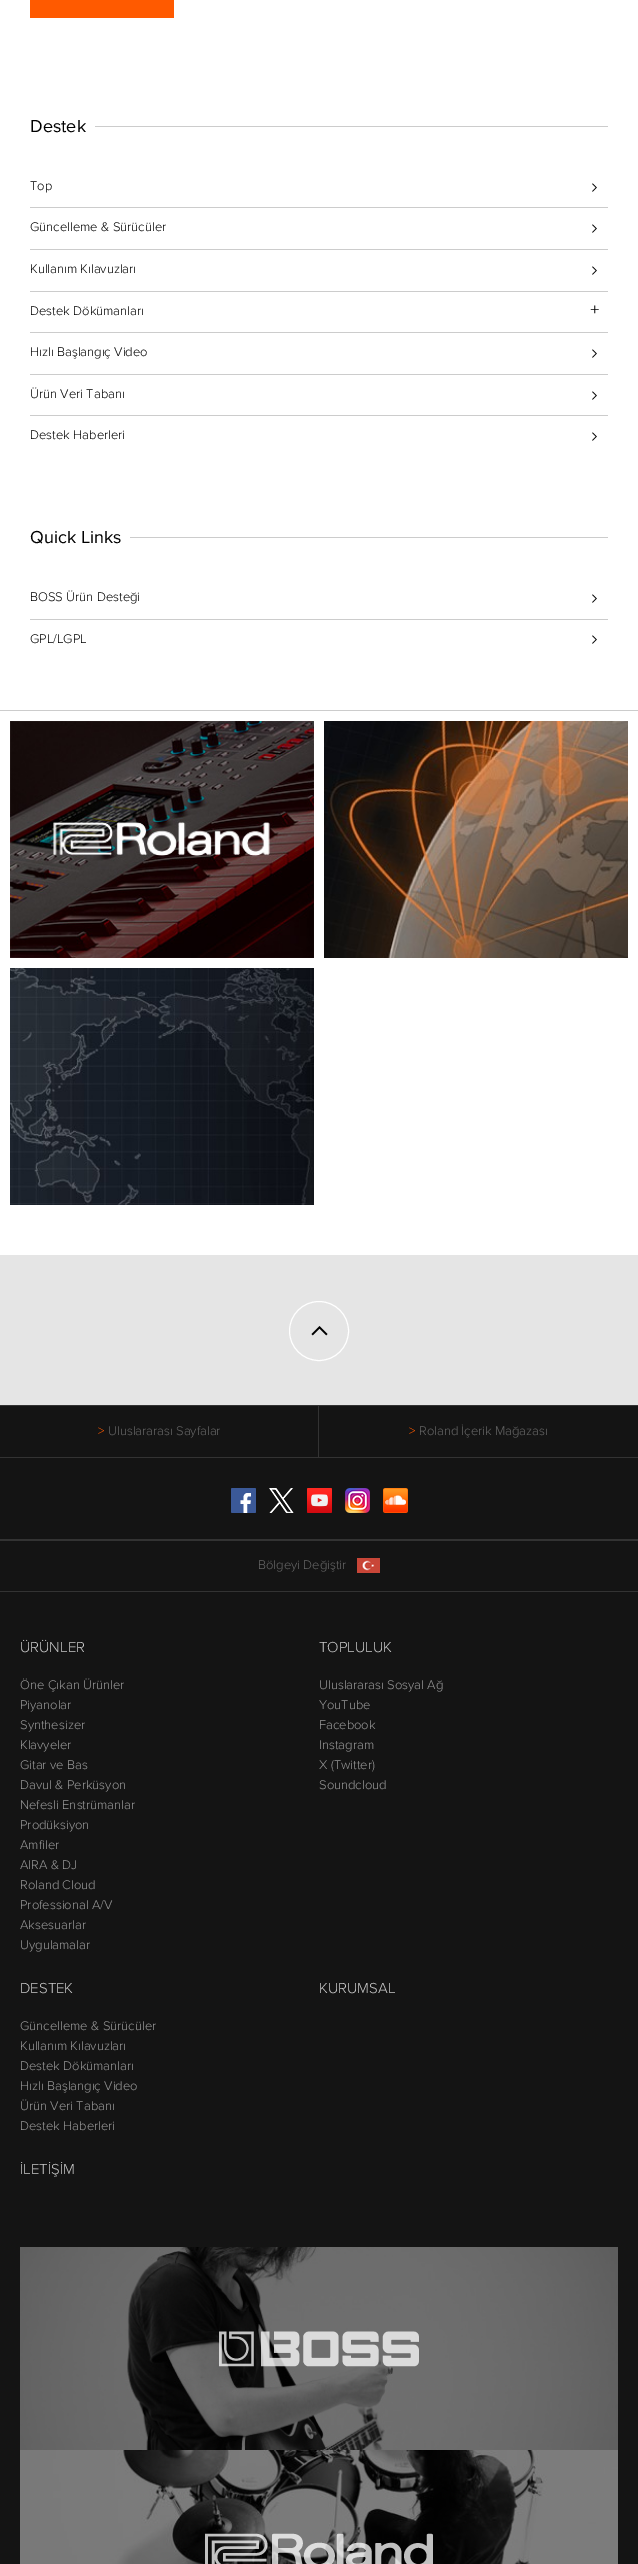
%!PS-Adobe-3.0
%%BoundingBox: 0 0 638 2564
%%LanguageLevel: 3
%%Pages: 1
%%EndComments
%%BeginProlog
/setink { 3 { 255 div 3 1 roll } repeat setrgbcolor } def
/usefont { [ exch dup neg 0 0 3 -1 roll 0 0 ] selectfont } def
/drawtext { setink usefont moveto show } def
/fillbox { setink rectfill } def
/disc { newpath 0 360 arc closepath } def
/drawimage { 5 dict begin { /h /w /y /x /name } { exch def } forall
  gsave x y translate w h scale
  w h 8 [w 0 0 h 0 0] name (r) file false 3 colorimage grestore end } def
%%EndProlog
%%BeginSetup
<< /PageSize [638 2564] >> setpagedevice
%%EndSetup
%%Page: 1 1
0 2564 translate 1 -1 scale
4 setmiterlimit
0 0 638 2564 255 255 255 fillbox
30 0 144 18 255 90 0 fillbox
95 126 513 1 204 204 204 fillbox
(Destek) 30 132 /ProximaNova-Regular 18 0 0 0 drawtext
(Top) 30 190 /ProximaNova-Light 13 0 0 0 drawtext
(assets/img1.rgb) 592 183 5 9 drawimage
30 207 578 1 204 204 204 fillbox
(Güncelleme & Sürücüler) 30 231 /ProximaNova-Light 13 0 0 0 drawtext
(assets/img1.rgb) 592 224 5 9 drawimage
30 249 578 1 204 204 204 fillbox
(Kullanım Kılavuzları) 30 273 /ProximaNova-Light 13 0 0 0 drawtext
(assets/img1.rgb) 592 266 5 9 drawimage
30 291 578 1 204 204 204 fillbox
(Destek Dökümanları) 30 315 /ProximaNova-Light 13 0 0 0 drawtext
(+) 590 315 /LiberationSerif-Regular 17 0 0 0 drawtext
30 332 578 1 204 204 204 fillbox
(Hızlı Başlangıç Video) 30 356 /ProximaNova-Light 13 0 0 0 drawtext
(assets/img1.rgb) 592 349 5 9 drawimage
30 374 578 1 204 204 204 fillbox
(Ürün Veri Tabanı) 30 398 /ProximaNova-Light 13 0 0 0 drawtext
(assets/img1.rgb) 592 391 5 9 drawimage
30 415 578 1 204 204 204 fillbox
(Destek Haberleri) 30 439 /ProximaNova-Light 13 0 0 0 drawtext
(assets/img1.rgb) 592 432 5 9 drawimage
130 537 478 1 204 204 204 fillbox
(Quick Links) 30 543 /ProximaNova-Regular 18 0 0 0 drawtext
(BOSS Ürün Desteği) 30 601 /ProximaNova-Light 13 0 0 0 drawtext
(assets/img1.rgb) 592 594 5 9 drawimage
30 619 578 1 204 204 204 fillbox
(GPL/LGPL) 30 643 /ProximaNova-Light 13 0 0 0 drawtext
(assets/img1.rgb) 592 635 5 9 drawimage
0 710 638 1 204 204 204 fillbox
(assets/img2.rgb) 10 721 304 237 drawimage
(assets/img3.rgb) 324 721 304 237 drawimage
(assets/img4.rgb) 10 968 304 237 drawimage
0 1255 638 150 229 229 229 fillbox
255 255 255 setink
319 1331 29.5 disc stroke
(assets/img5.rgb) 311 1326 17 10 drawimage
0 1406 638 1158 20 20 20 fillbox
0 1405 638 1 51 51 51 fillbox
0 1457 638 1 51 51 51 fillbox
318 1406 1 52 51 51 51 fillbox
(>) 98 1435 /ProximaNova-Light 13 255 90 0 drawtext
(Uluslararası Sayfalar) 108 1435 /ProximaNova-Light 13 102 102 102 drawtext
(>) 409 1435 /ProximaNova-Light 13 255 90 0 drawtext
(Roland İçerik Mağazası) 419 1435 /ProximaNova-Light 13 102 102 102 drawtext
(assets/img6.rgb) 231 1488 25 25 drawimage
(assets/img7.rgb) 269 1488 25 25 drawimage
(assets/img8.rgb) 307 1488 25 25 drawimage
(assets/img9.rgb) 345 1488 25 25 drawimage
(assets/img10.rgb) 383 1488 25 25 drawimage
0 1539 638 2 51 51 51 fillbox
0 1591 638 1 51 51 51 fillbox
(Bölgeyi Değiştir) 258 1569 /ProximaNova-Light 13 102 102 102 drawtext
(assets/img11.rgb) 357 1558 23 15 drawimage
(ÜRÜNLER) 20 1652 /ProximaNova-Light 15 204 204 204 drawtext
(Öne Çıkan Ürünler) 20 1689 /ProximaNova-Light 13 153 153 153 drawtext
(Piyanolar) 20 1709 /ProximaNova-Light 13 153 153 153 drawtext
(Synthesizer) 20 1729 /ProximaNova-Light 13 153 153 153 drawtext
(Klavyeler) 20 1749 /ProximaNova-Light 13 153 153 153 drawtext
(Gitar ve Bas) 20 1769 /ProximaNova-Light 13 153 153 153 drawtext
(Davul & Perküsyon) 20 1789 /ProximaNova-Light 13 153 153 153 drawtext
(Nefesli Enstrümanlar) 20 1809 /ProximaNova-Light 13 153 153 153 drawtext
(Prodüksiyon) 20 1829 /ProximaNova-Light 13 153 153 153 drawtext
(Amfiler) 20 1849 /ProximaNova-Light 13 153 153 153 drawtext
(AIRA & DJ) 20 1869 /ProximaNova-Light 13 153 153 153 drawtext
(Roland Cloud) 20 1889 /ProximaNova-Light 13 153 153 153 drawtext
(Professional A/V) 20 1909 /ProximaNova-Light 13 153 153 153 drawtext
(Aksesuarlar) 20 1929 /ProximaNova-Light 13 153 153 153 drawtext
(Uygulamalar) 20 1949 /ProximaNova-Light 13 153 153 153 drawtext
(TOPLULUK) 319 1652 /ProximaNova-Light 15 204 204 204 drawtext
(Uluslararası Sosyal Ağ) 319 1689 /ProximaNova-Light 13 153 153 153 drawtext
(YouTube) 319 1709 /ProximaNova-Light 13 153 153 153 drawtext
(Facebook) 319 1729 /ProximaNova-Light 13 153 153 153 drawtext
(Instagram) 319 1749 /ProximaNova-Light 13 153 153 153 drawtext
(X \(Twitter\)) 319 1769 /ProximaNova-Light 13 153 153 153 drawtext
(Soundcloud) 319 1789 /ProximaNova-Light 13 153 153 153 drawtext
(DESTEK) 20 1993 /ProximaNova-Light 15 204 204 204 drawtext
(Güncelleme & Sürücüler) 20 2030 /ProximaNova-Light 13 153 153 153 drawtext
(Kullanım Kılavuzları) 20 2050 /ProximaNova-Light 13 153 153 153 drawtext
(Destek Dökümanları) 20 2070 /ProximaNova-Light 13 153 153 153 drawtext
(Hızlı Başlangıç Video) 20 2090 /ProximaNova-Light 13 153 153 153 drawtext
(Ürün Veri Tabanı) 20 2110 /ProximaNova-Light 13 153 153 153 drawtext
(Destek Haberleri) 20 2130 /ProximaNova-Light 13 153 153 153 drawtext
(KURUMSAL) 319 1993 /ProximaNova-Light 15 204 204 204 drawtext
(İLETİŞİM) 20 2174 /ProximaNova-Light 15 204 204 204 drawtext
20 2247 598 317 0 0 0 fillbox
(assets/img12.rgb) 20 2247 598 203 drawimage
(assets/img13.rgb) 219 2331 200 36 drawimage
(assets/img14.rgb) 20 2450 598 114 drawimage
(assets/img15.rgb) 205 2533 228 31 drawimage
showpage
%%EOF
